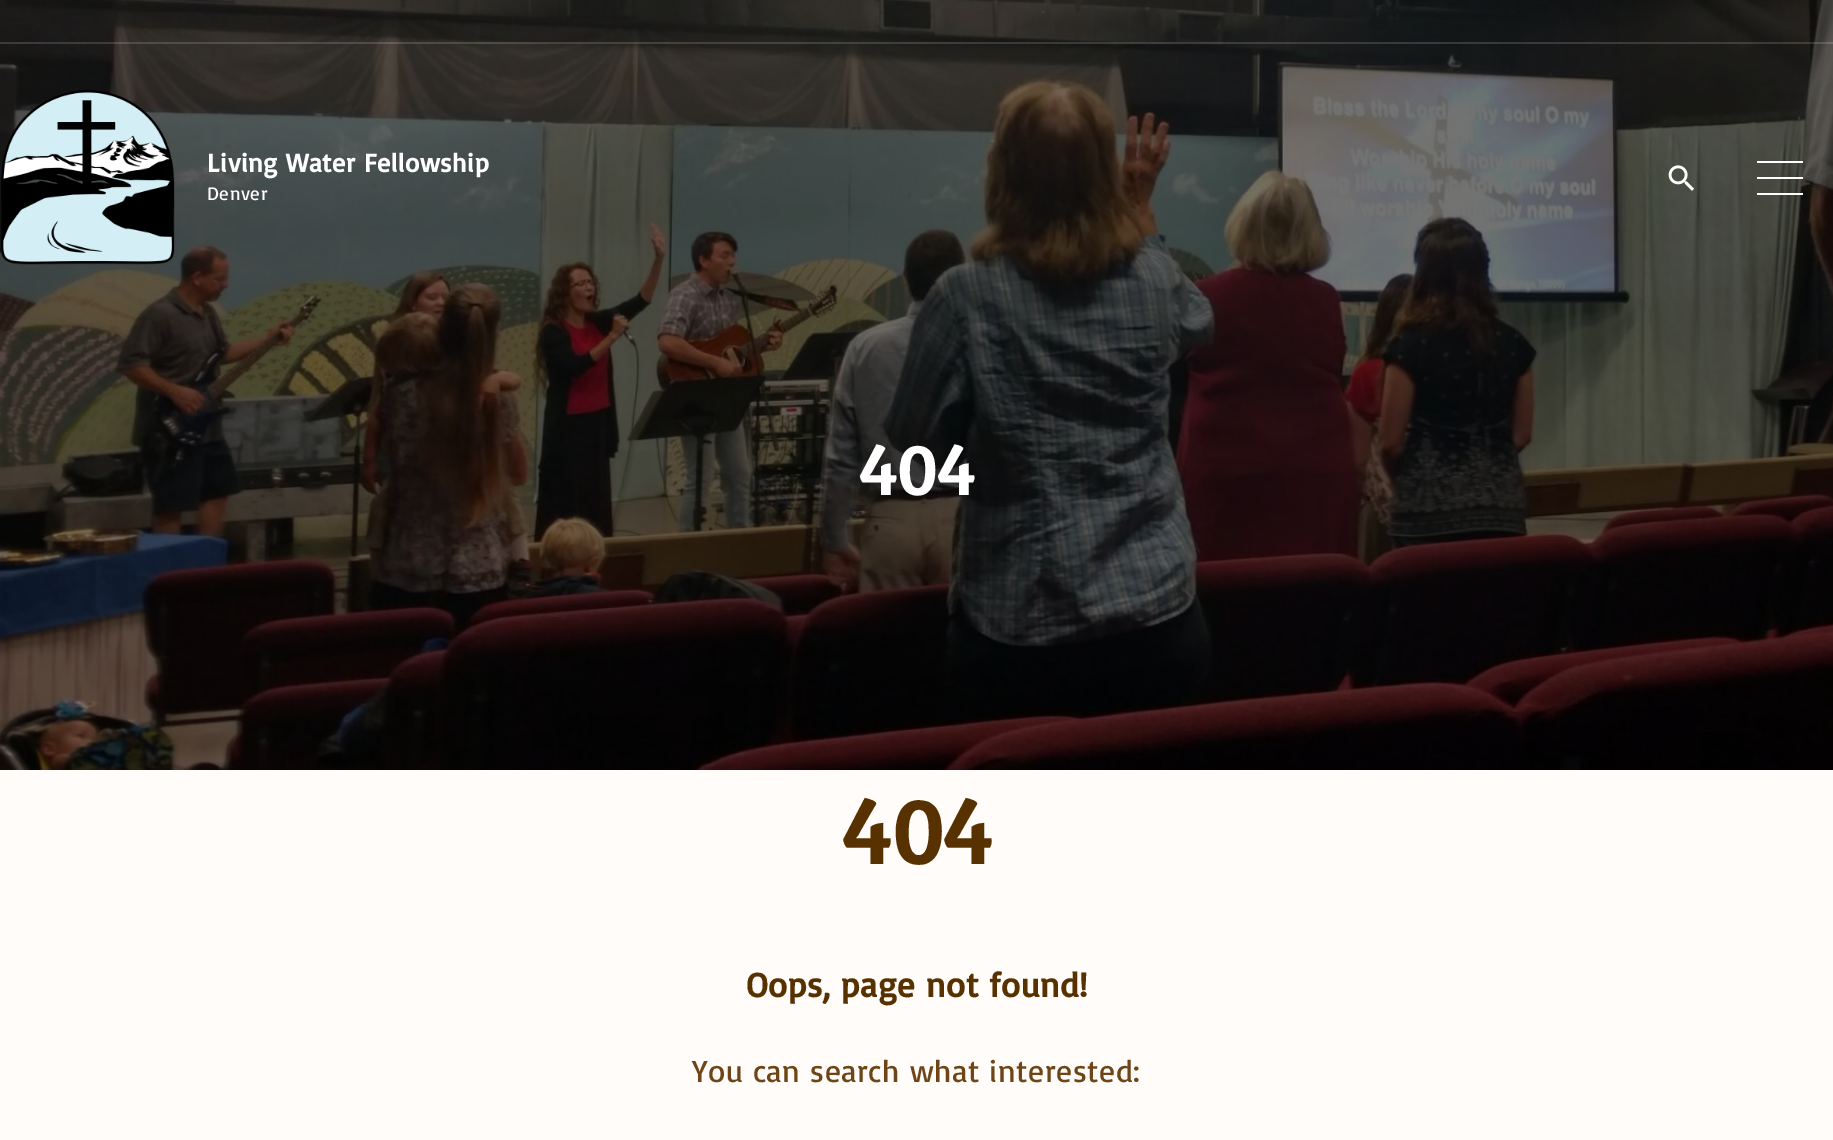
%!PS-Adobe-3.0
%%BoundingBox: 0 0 1833 1140
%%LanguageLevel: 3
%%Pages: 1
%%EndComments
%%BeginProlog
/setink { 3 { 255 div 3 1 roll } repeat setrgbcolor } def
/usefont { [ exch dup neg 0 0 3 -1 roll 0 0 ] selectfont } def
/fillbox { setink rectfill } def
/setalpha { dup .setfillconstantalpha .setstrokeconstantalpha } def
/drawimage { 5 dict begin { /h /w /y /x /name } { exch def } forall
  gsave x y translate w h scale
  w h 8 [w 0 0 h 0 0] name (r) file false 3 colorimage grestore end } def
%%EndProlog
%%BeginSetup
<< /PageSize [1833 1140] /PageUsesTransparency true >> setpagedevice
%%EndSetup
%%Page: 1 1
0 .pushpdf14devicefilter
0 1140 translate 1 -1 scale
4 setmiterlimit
0 0 1833 1140 255 252 250 fillbox
(assets/img1.rgb) 0 0 1833 770 drawimage
0.15 setalpha
0 42 1833 2 255 255 255 fillbox
1 setalpha
(assets/img2.rgb) 1 90 174 175 drawimage
/Basic-Bold 26.25 usefont
207 172 moveto 0.6 0 (Living Water Fellowship) ashow
/Basic-Regular 19 usefont
207 200 moveto 0.6 0 (Denver) ashow
(assets/img3.rgb) 1668 165 26 26 drawimage
1757 177 46 2 255 255 255 fillbox
1757 161 46 2 255 255 255 fillbox
1757 193 46 2 255 255 255 fillbox
/Basic-Bold 70 usefont
859 495 moveto 0.6 0 (404) ashow
/Basic-Bold 91 usefont
88 49 1 setink
842 864 moveto 0.6 0 (404) ashow
/Basic-Bold 34.75 usefont
746 997 moveto 0.6 0 (Oops, page not found!) ashow
/Basic-Regular 31.5 usefont
111 69 24 setink
692 1082 moveto 0.6 0 (You can search what interested:) ashow
.poppdf14devicefilter showpage
%%EOF
